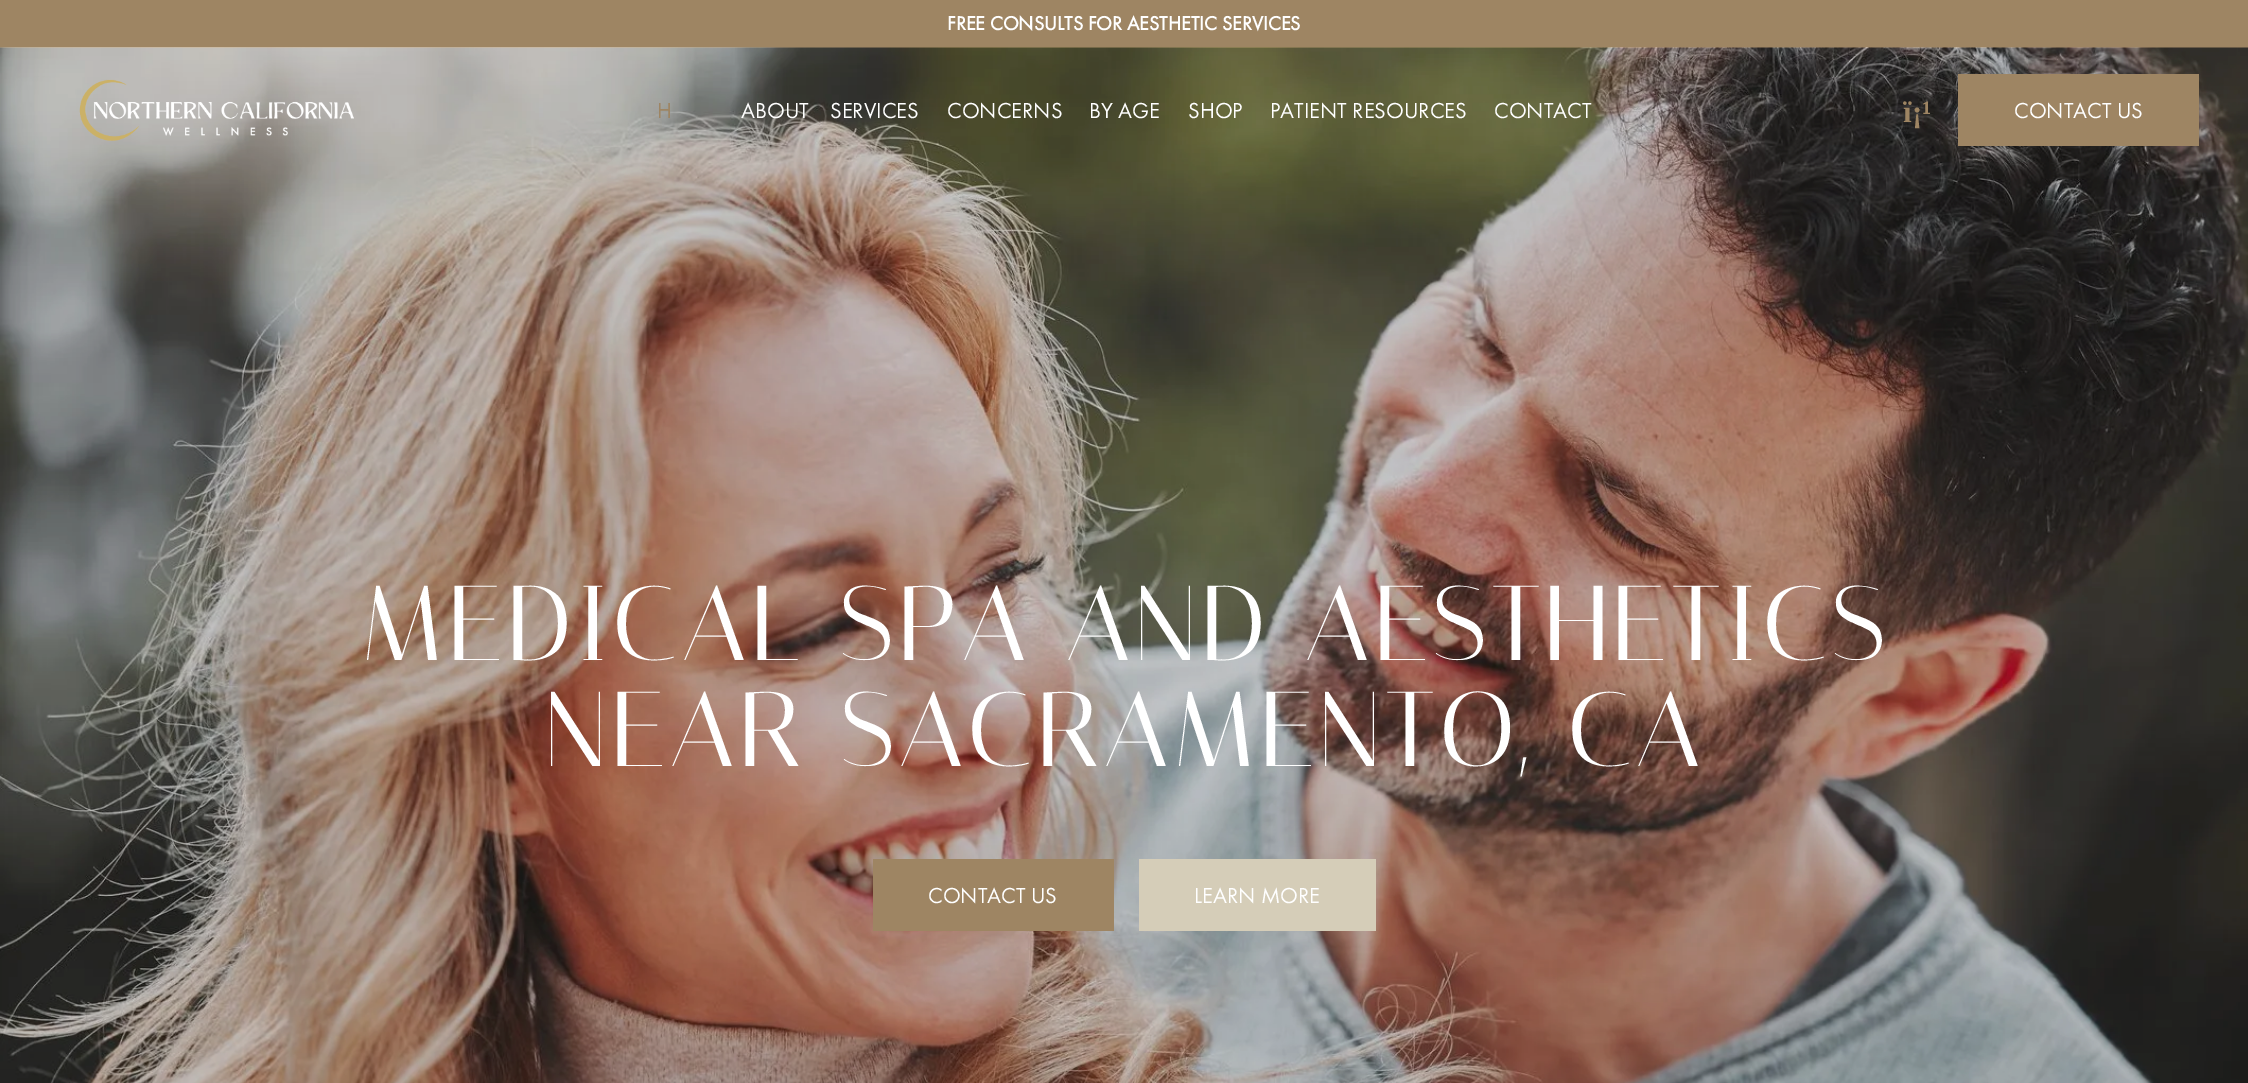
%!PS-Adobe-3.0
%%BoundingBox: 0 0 2248 1083
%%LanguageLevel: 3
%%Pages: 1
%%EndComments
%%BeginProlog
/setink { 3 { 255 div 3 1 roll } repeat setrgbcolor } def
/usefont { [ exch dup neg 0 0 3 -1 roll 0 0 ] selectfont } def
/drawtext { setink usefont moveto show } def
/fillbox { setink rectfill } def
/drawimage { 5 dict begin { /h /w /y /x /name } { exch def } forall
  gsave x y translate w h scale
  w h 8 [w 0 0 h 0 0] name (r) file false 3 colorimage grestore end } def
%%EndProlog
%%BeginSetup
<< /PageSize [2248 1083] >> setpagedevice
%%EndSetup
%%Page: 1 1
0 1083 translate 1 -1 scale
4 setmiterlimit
0 0 2248 1083 158 133 99 fillbox
(FREE CONSULTS FOR AESTHETIC SERVICES) 947 30 /FuturaPT-Bold 20 255 255 255 drawtext
(assets/img2.rgb) 0 47 2248 1036 drawimage
(assets/img1.rgb) 79 79 275 62 drawimage
(H) 657 118 /FuturaPT-Regular 22.5 158 133 99 drawtext
(ABOUT) 741 118 /FuturaPT-Regular 22.5 255 255 255 drawtext
(SERVICES) 830 118 /FuturaPT-Regular 22.5 255 255 255 drawtext
(CONCERNS) 947 118 /FuturaPT-Regular 22.5 255 255 255 drawtext
(BY AGE) 1089 118 /FuturaPT-Regular 22.5 255 255 255 drawtext
(SHOP) 1188 118 /FuturaPT-Regular 22.5 255 255 255 drawtext
(PATIENT RESOURCES) 1270 118 /FuturaPT-Regular 22.5 255 255 255 drawtext
(CONTACT) 1494 118 /FuturaPT-Regular 22.5 255 255 255 drawtext
(ï¡¹) 1903 122 /LiberationSerif-Bold 31 158 133 99 drawtext
1958 74 241 72 158 133 99 fillbox
(CONTACT US) 2014 118 /FuturaPT-Regular 22.5 255 255 255 drawtext
/Italiana-Regular 106.25 usefont
360 660 moveto 3.1 0 (MEDICAL SPA AND AESTHETICS) ashow
544 766 moveto 3.1 0 (NEAR SACRAMENTO, CA) ashow
873 859 241 72 158 133 99 fillbox
(CONTACT US) 928 903 /FuturaPT-Regular 22.5 255 255 255 drawtext
1139 859 237 72 213 205 184 fillbox
(LEARN MORE) 1194 903 /FuturaPT-Regular 22.5 255 255 255 drawtext
showpage
%%EOF
